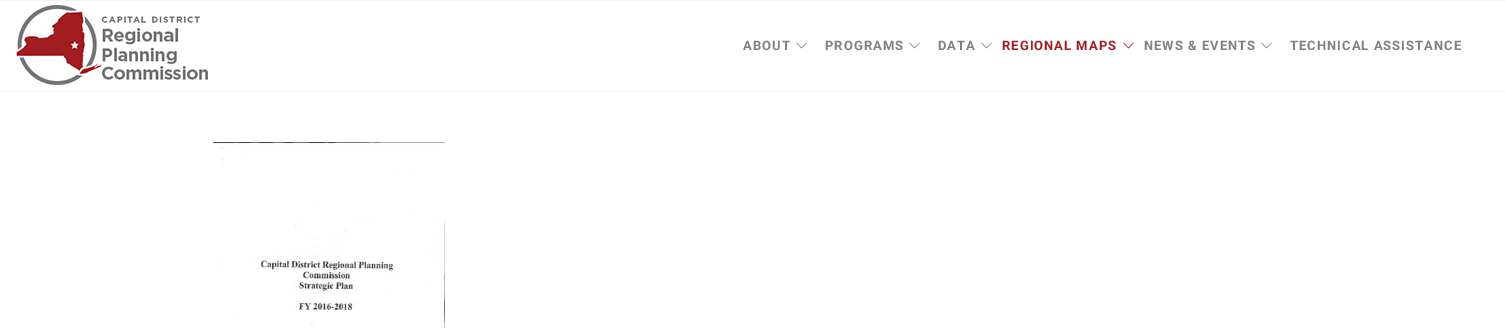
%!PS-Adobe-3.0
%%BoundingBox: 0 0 1505 328
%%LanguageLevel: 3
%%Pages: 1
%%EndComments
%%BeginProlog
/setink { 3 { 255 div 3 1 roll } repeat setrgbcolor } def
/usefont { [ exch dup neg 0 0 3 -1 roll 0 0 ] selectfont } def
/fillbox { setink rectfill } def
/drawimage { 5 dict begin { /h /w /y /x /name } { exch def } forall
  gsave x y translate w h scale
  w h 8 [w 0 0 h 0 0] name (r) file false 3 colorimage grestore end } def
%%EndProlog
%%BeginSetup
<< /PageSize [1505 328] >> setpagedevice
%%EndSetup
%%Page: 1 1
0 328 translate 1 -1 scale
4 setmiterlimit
0 0 1505 328 255 255 255 fillbox
0 0 1505 1 240 242 247 fillbox
0 91 1505 1 240 242 247 fillbox
(assets/img1.rgb) 16 5 192 80 drawimage
/Roboto-Bold 13 usefont
128 128 128 setink
743 50 moveto 1 0 (ABOUT) ashow
(assets/img2.rgb) 796 42 11 7 drawimage
825 50 moveto 1 0 (PROGRAMS) ashow
(assets/img2.rgb) 909 42 11 7 drawimage
938 50 moveto 1 0 (DATA) ashow
(assets/img2.rgb) 981 42 11 7 drawimage
162 29 34 setink
1002 50 moveto 1 0 (REGIONAL MAPS) ashow
(assets/img3.rgb) 1123 42 11 7 drawimage
128 128 128 setink
1144 50 moveto 1 0 (NEWS & EVENTS) ashow
(assets/img2.rgb) 1261 42 11 7 drawimage
1290 50 moveto 1 0 (TECHNICAL ASSISTANCE) ashow
(assets/img4.rgb) 213 142 232 186 drawimage
showpage
%%EOF
